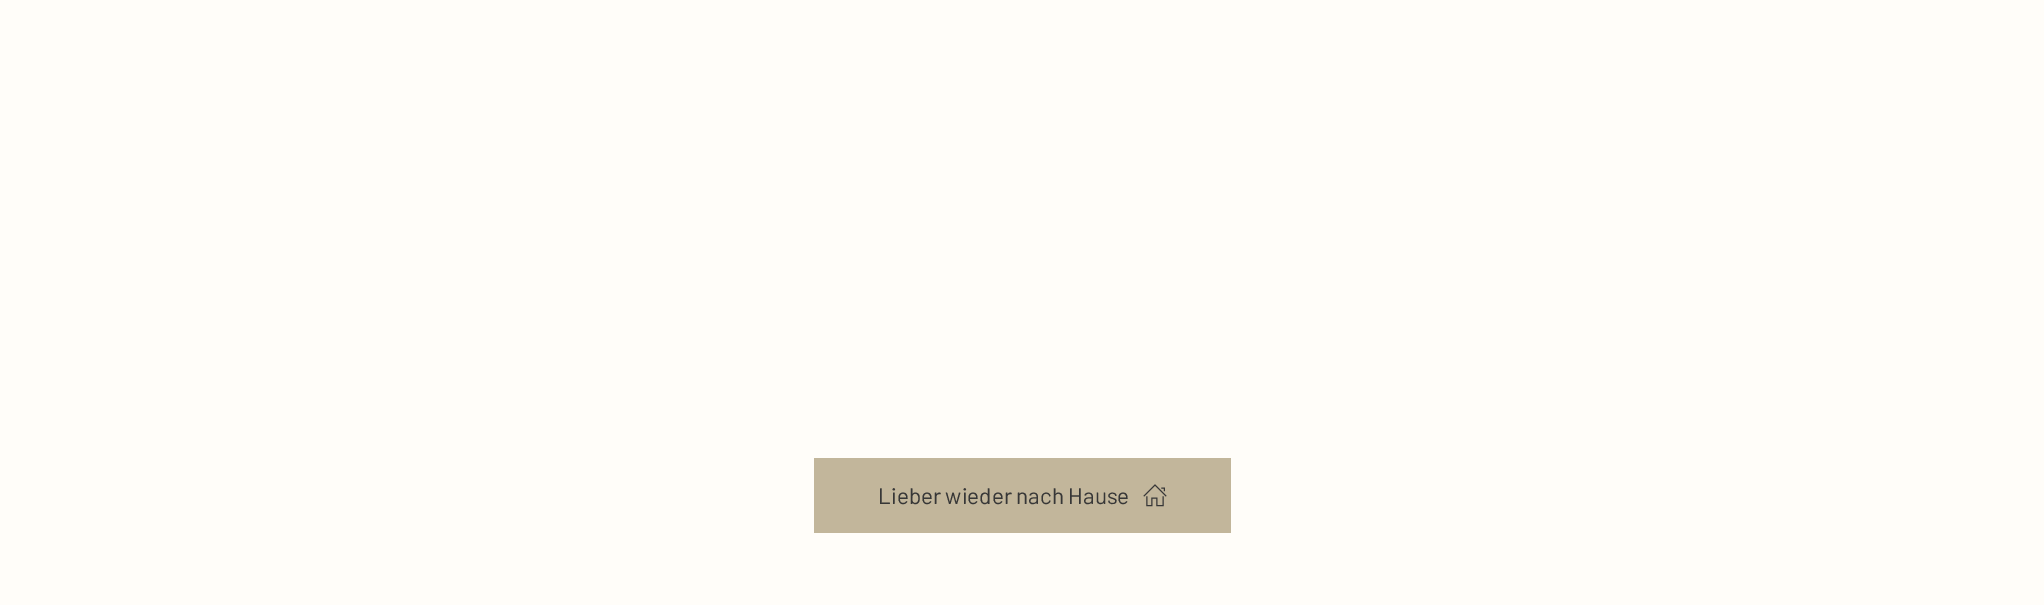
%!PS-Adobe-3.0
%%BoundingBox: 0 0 2044 605
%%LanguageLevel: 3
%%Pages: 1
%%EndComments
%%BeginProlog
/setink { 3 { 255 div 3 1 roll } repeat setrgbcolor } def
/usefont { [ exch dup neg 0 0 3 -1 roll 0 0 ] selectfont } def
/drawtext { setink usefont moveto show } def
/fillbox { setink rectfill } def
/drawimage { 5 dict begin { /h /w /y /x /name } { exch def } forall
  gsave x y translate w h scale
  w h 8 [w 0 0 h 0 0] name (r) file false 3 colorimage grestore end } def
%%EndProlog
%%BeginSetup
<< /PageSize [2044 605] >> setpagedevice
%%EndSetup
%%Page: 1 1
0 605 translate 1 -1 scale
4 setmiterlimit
0 0 2044 605 255 253 249 fillbox
814 458 417 75 194 182 155 fillbox
(Lieber wieder nach Hause) 878 504 /Barlow-Regular 22.5 55 55 55 drawtext
(assets/img1.rgb) 1143 484 24 23 drawimage
showpage
%%EOF
